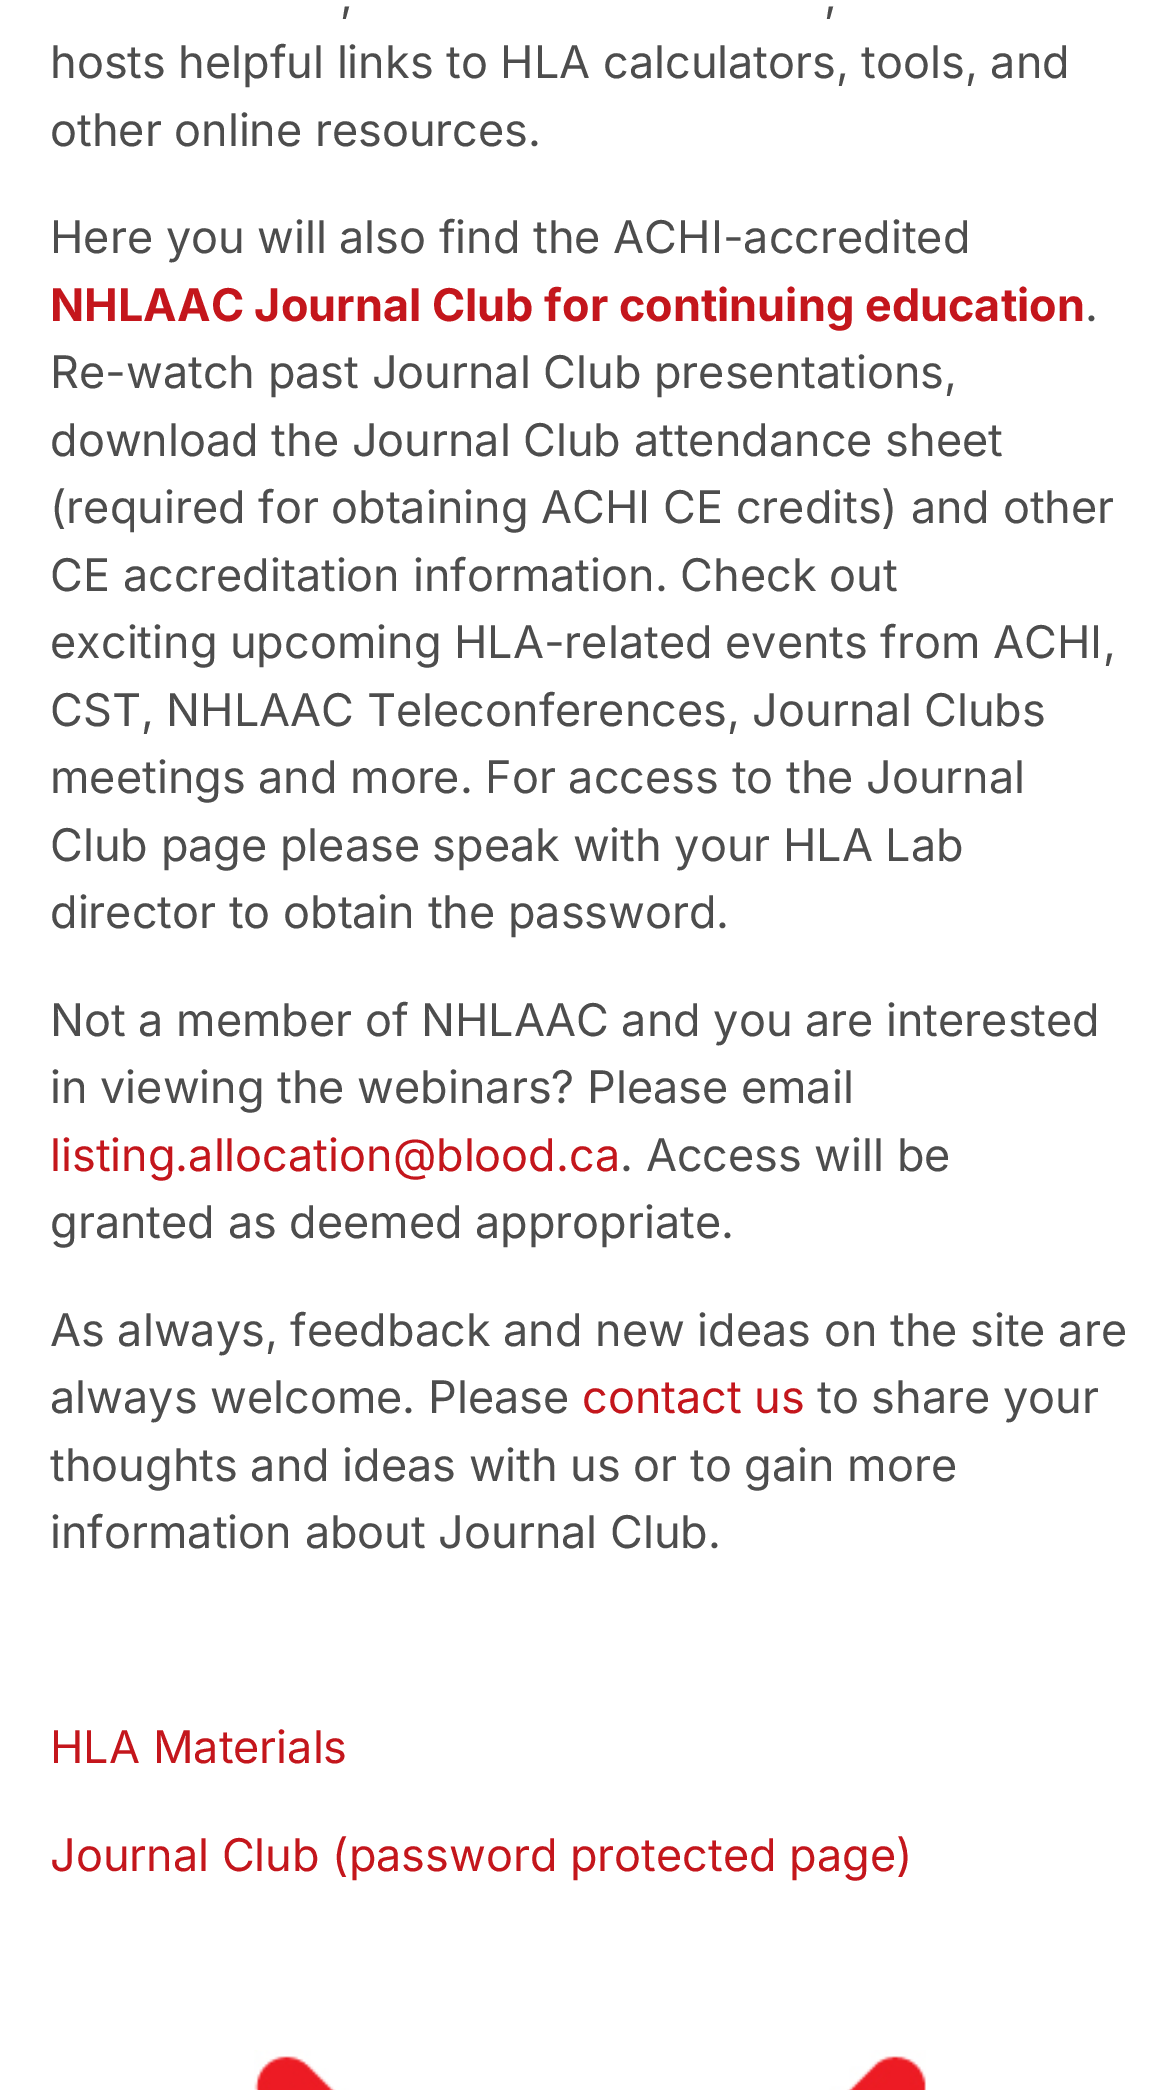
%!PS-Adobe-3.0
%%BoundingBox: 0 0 1176 2090
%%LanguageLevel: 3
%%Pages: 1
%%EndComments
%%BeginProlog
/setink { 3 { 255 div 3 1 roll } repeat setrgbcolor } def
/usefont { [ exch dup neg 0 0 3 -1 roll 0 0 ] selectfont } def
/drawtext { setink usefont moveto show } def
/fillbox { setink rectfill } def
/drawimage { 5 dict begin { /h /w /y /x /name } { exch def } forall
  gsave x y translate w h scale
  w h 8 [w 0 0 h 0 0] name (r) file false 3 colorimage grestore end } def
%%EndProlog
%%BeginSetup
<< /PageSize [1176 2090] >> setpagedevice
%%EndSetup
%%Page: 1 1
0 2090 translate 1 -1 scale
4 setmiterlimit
0 0 1176 2090 255 255 255 fillbox
(,) 340 11 /Inter-Regular 45 77 77 77 drawtext
(,) 824 11 /Inter-Regular 45 77 77 77 drawtext
(hosts helpful links to HLA calculators, tools, and) 50 78 /Inter-Regular 45 77 77 77 drawtext
(other online resources.) 50 146 /Inter-Regular 45 77 77 77 drawtext
(Here you will also find the ACHI-accredited) 50 253 /Inter-Regular 45 77 77 77 drawtext
(NHLAAC Journal Club for continuing education) 50 321 /Inter-Bold 45 196 22 28 drawtext
(.) 1085 321 /Inter-Regular 45 77 77 77 drawtext
(Re-watch past Journal Club presentations,) 50 388 /Inter-Regular 45 77 77 77 drawtext
(download the Journal Club attendance sheet) 50 456 /Inter-Regular 45 77 77 77 drawtext
(\(required for obtaining ACHI CE credits\) and other) 50 523 /Inter-Regular 45 77 77 77 drawtext
(CE accreditation information. Check out) 50 591 /Inter-Regular 45 77 77 77 drawtext
(exciting upcoming HLA-related events from ACHI,) 50 658 /Inter-Regular 45 77 77 77 drawtext
(CST, NHLAAC Teleconferences, Journal Clubs) 50 726 /Inter-Regular 45 77 77 77 drawtext
(meetings and more. For access to the Journal) 50 793 /Inter-Regular 45 77 77 77 drawtext
(Club page please speak with your HLA Lab) 50 861 /Inter-Regular 45 77 77 77 drawtext
(director to obtain the password.) 50 928 /Inter-Regular 45 77 77 77 drawtext
(Not a member of NHLAAC and you are interested) 50 1036 /Inter-Regular 45 77 77 77 drawtext
(in viewing the webinars? Please email) 50 1103 /Inter-Regular 45 77 77 77 drawtext
(listing.allocation@blood.ca) 50 1171 /Inter-Regular 45 196 22 28 drawtext
(. Access will be) 620 1171 /Inter-Regular 45 77 77 77 drawtext
(granted as deemed appropriate.) 50 1238 /Inter-Regular 45 77 77 77 drawtext
(As always, feedback and new ideas on the site are) 50 1346 /Inter-Regular 45 77 77 77 drawtext
(always welcome. Please) 50 1413 /Inter-Regular 45 77 77 77 drawtext
(contact us) 582 1413 /Inter-Regular 45 196 22 28 drawtext
(to share your) 817 1413 /Inter-Regular 45 77 77 77 drawtext
(thoughts and ideas with us or to gain more) 50 1481 /Inter-Regular 45 77 77 77 drawtext
(information about Journal Club.) 50 1548 /Inter-Regular 45 77 77 77 drawtext
(HLA Materials) 50 1763 /Inter-Regular 45 196 22 28 drawtext
(Journal Club \(password protected page\)) 50 1871 /Inter-Regular 45 196 22 28 drawtext
(assets/img1.rgb) 254 2050 672 40 drawimage
showpage
%%EOF
